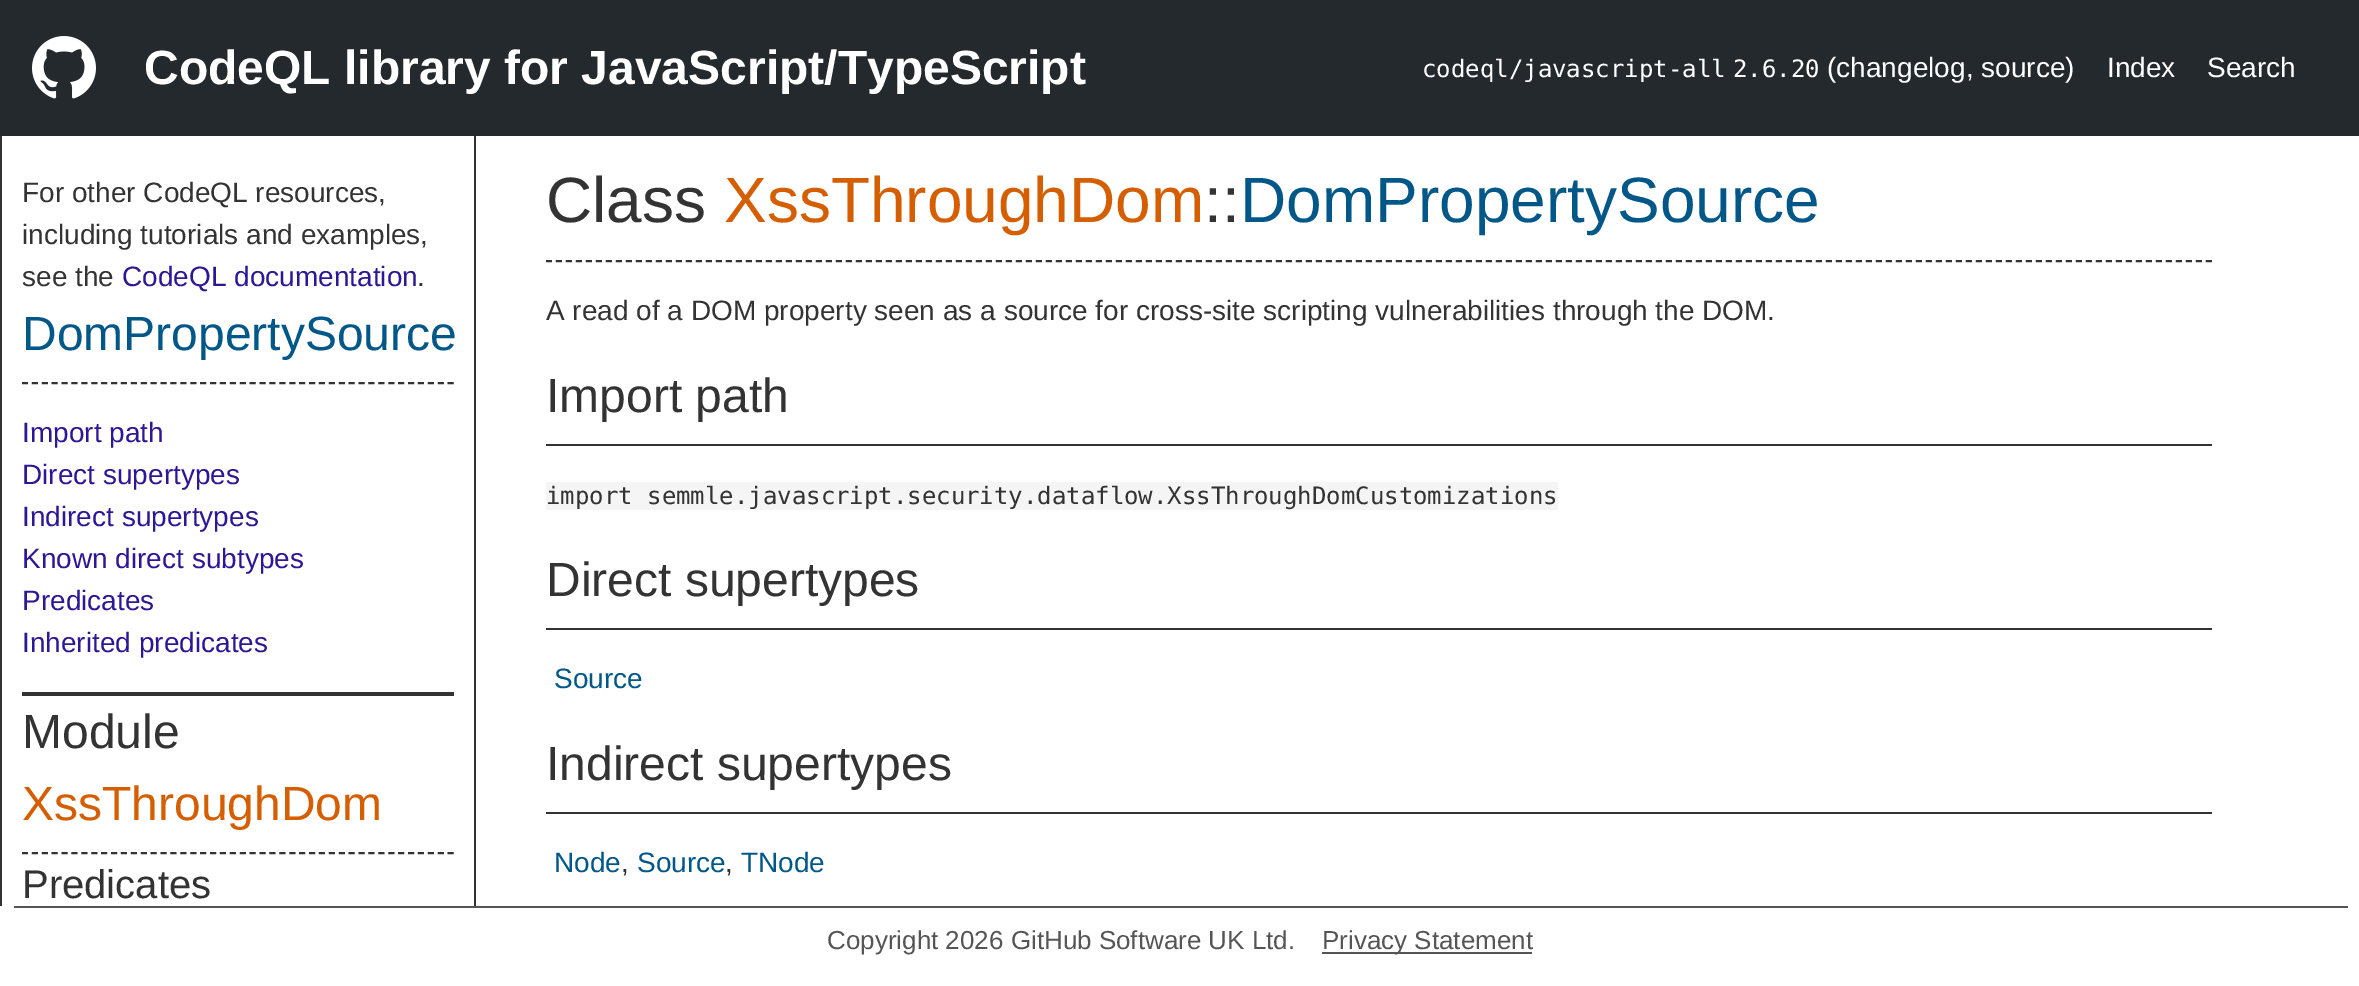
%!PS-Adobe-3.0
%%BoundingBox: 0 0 2359 986
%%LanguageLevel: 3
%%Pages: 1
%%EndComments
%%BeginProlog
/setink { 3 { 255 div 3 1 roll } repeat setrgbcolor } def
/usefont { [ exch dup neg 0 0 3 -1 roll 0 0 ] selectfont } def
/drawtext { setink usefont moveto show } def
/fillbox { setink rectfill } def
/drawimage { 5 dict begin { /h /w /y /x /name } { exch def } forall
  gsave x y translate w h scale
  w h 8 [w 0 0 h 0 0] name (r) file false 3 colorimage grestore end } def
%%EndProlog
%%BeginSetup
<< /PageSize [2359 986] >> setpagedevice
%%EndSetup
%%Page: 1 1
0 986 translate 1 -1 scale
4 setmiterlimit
0 0 2359 986 255 255 255 fillbox
0 0 2359 136 36 41 46 fillbox
(assets/img1.rgb) 32 36 64 63 drawimage
(CodeQL library for JavaScript/TypeScript) 144 84 /LiberationSans-Bold 48 255 255 255 drawtext
(codeql/javascript-all) 1422 77 /DejaVuSansMono-Regular 24 255 255 255 drawtext
(2.6.20) 1733 77 /DejaVuSansMono-Regular 24 255 255 255 drawtext
(\(changelog, source\)) 1827 77 /LiberationSans-Regular 28 255 255 255 drawtext
(Index) 2107 77 /LiberationSans-Regular 28 255 255 255 drawtext
(Search) 2207 77 /LiberationSans-Regular 28 255 255 255 drawtext
474 136 2 770 51 51 51 fillbox
0 136 2 770 51 51 51 fillbox
22 692 432 4 51 51 51 fillbox
(For other CodeQL resources,) 22 202 /LiberationSans-Regular 28 51 51 51 drawtext
(including tutorials and examples,) 22 244 /LiberationSans-Regular 28 51 51 51 drawtext
(see the) 22 286 /LiberationSans-Regular 28 51 51 51 drawtext
(CodeQL documentation) 122 286 /LiberationSans-Regular 28 47 22 149 drawtext
(.) 417 286 /LiberationSans-Regular 28 51 51 51 drawtext
2 setlinewidth
[6 3.9] 0 setdash
22 383 moveto 454 383 lineto stroke
(DomPropertySource) 22 350 /LiberationSans-Regular 48 0 87 136 drawtext
(Import path) 22 442 /LiberationSans-Regular 28 47 22 149 drawtext
(Direct supertypes) 22 484 /LiberationSans-Regular 28 47 22 149 drawtext
(Indirect supertypes) 22 526 /LiberationSans-Regular 28 47 22 149 drawtext
(Known direct subtypes) 22 568 /LiberationSans-Regular 28 47 22 149 drawtext
(Predicates) 22 610 /LiberationSans-Regular 28 47 22 149 drawtext
(Inherited predicates) 22 652 /LiberationSans-Regular 28 47 22 149 drawtext
51 51 51 setink
22 853 moveto 454 853 lineto stroke
(Module) 22 748 /LiberationSans-Regular 48 51 51 51 drawtext
(XssThroughDom) 22 820 /LiberationSans-Regular 48 213 94 0 drawtext
(Predicates) 22 898 /LiberationSans-Regular 40 51 51 51 drawtext
[6 4] 0 setdash
546 261 moveto 2212 261 lineto stroke
(Class) 546 222 /LiberationSans-Regular 64 51 51 51 drawtext
(XssThroughDom) 724 222 /LiberationSans-Regular 64 213 94 0 drawtext
(::) 1204 222 /LiberationSans-Regular 64 51 51 51 drawtext
(DomPropertySource) 1240 222 /LiberationSans-Regular 64 0 87 136 drawtext
(A read of a DOM property seen as a source for cross-site scripting vulnerabilities through the DOM.) 546 320 /LiberationSans-Regular 28 51 51 51 drawtext
546 444 1666 2 51 51 51 fillbox
(Import path) 546 412 /LiberationSans-Regular 48 51 51 51 drawtext
546 482 1012 28 245 245 245 fillbox
(import semmle.javascript.security.dataflow.XssThroughDomCustomizations) 546 504 /DejaVuSansMono-Regular 24 51 51 51 drawtext
546 628 1666 2 51 51 51 fillbox
(Direct supertypes) 546 596 /LiberationSans-Regular 48 51 51 51 drawtext
(Source) 554 688 /LiberationSans-Regular 28 0 87 136 drawtext
546 812 1666 2 51 51 51 fillbox
(Indirect supertypes) 546 780 /LiberationSans-Regular 48 51 51 51 drawtext
(Node) 554 872 /LiberationSans-Regular 28 0 87 136 drawtext
(,) 621 872 /LiberationSans-Regular 28 51 51 51 drawtext
(Source) 637 872 /LiberationSans-Regular 28 0 87 136 drawtext
(,) 725 872 /LiberationSans-Regular 28 51 51 51 drawtext
(TNode) 741 872 /LiberationSans-Regular 28 0 87 136 drawtext
14 906 2334 2 85 85 85 fillbox
(Copyright 2026 GitHub Software UK Ltd.) 827 949 /LiberationSans-Regular 26 85 85 85 drawtext
1322 952 210 2 85 85 85 fillbox
(Privacy Statement) 1322 949 /LiberationSans-Regular 26 85 85 85 drawtext
showpage
%%EOF
